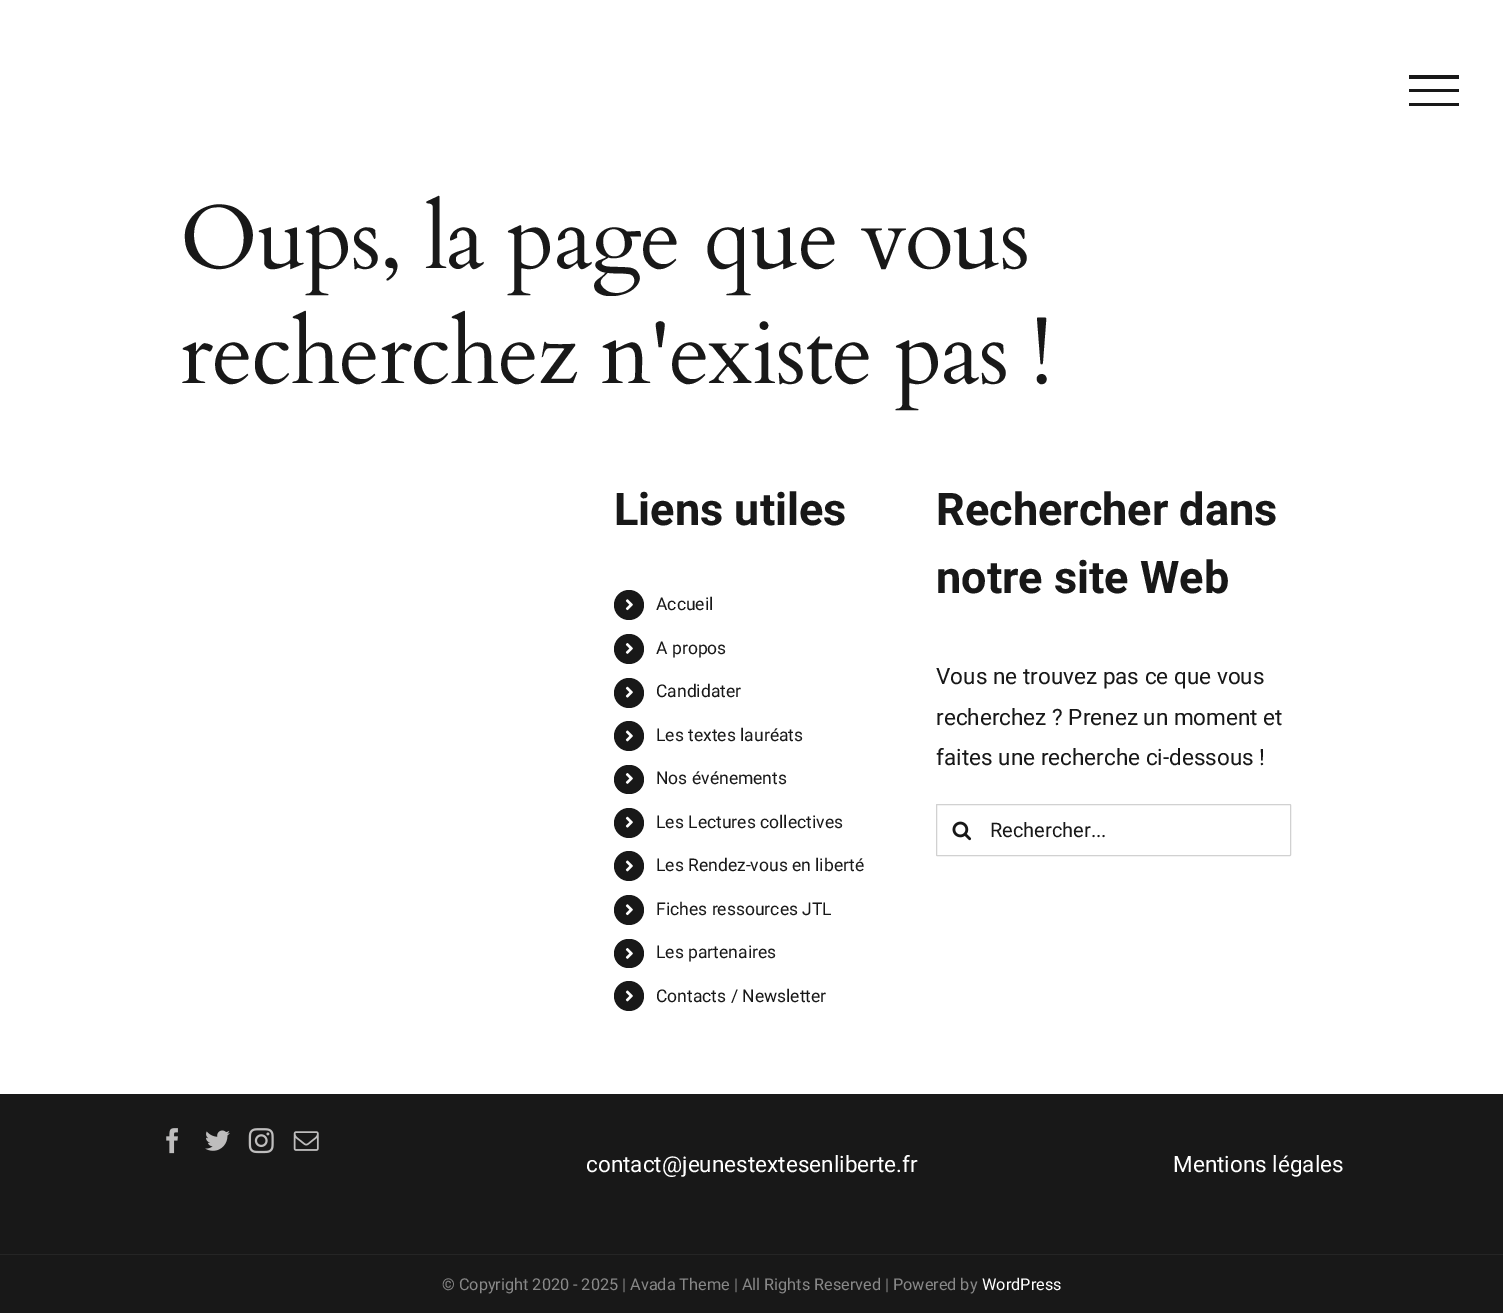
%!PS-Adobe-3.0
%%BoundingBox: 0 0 1503 1313
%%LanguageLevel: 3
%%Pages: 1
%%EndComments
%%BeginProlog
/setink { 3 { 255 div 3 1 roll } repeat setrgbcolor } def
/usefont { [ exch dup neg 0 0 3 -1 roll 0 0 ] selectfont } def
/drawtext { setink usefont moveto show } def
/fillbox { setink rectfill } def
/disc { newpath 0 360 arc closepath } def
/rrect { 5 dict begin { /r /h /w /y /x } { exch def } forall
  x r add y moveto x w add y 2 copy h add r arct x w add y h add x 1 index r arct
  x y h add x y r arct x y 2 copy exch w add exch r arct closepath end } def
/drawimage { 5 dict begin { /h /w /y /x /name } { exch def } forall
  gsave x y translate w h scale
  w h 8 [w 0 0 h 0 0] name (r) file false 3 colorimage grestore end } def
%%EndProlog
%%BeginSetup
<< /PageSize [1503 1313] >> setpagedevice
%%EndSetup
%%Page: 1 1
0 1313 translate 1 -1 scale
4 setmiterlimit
0 0 1503 1313 255 255 255 fillbox
1409 75 50 4 24 24 24 fillbox
1409 89 50 3 24 24 24 fillbox
1409 103 50 3 24 24 24 fillbox
/Cardo-Regular 90 usefont
180 268 moveto -1.25 0 (Oups, la page que vous) ashow
180 383 moveto -1.25 0 (recherchez n'existe pas !) ashow
(Liens utiles) 614 525 /Heebo-Bold 45 24 24 24 drawtext
629 605 15 disc fill
(assets/img1.rgb) 625 599 8 12 drawimage
(Accueil) 656 610 /Heebo-Regular 17.5 24 24 24 drawtext
629 649 15 disc fill
(assets/img2.rgb) 625 643 8 11 drawimage
(A propos) 656 654 /Heebo-Regular 17.5 24 24 24 drawtext
629 693 15 disc fill
(assets/img3.rgb) 625 686 8 12 drawimage
(Candidater) 656 697 /Heebo-Regular 17.5 24 24 24 drawtext
629 736 15 disc fill
(assets/img4.rgb) 625 730 8 12 drawimage
(Les textes lauréats) 656 741 /Heebo-Regular 17.5 24 24 24 drawtext
614 765 30 29 14.5 rrect fill
(assets/img2.rgb) 625 773 8 11 drawimage
(Nos événements) 656 784 /Heebo-Regular 17.5 24 24 24 drawtext
629 823 15 disc fill
(assets/img3.rgb) 625 816 8 12 drawimage
(Les Lectures collectives) 656 828 /Heebo-Regular 17.5 24 24 24 drawtext
629 866 15 disc fill
(assets/img4.rgb) 625 860 8 12 drawimage
(Les Rendez-vous en liberté) 656 871 /Heebo-Regular 17.5 24 24 24 drawtext
629 910 15 disc fill
(assets/img1.rgb) 625 904 8 12 drawimage
(Fiches ressources JTL) 656 915 /Heebo-Regular 17.5 24 24 24 drawtext
614 939 30 29 14.5 rrect fill
(assets/img2.rgb) 625 948 8 11 drawimage
(Les partenaires) 656 958 /Heebo-Regular 17.5 24 24 24 drawtext
629 996 15 disc fill
(assets/img4.rgb) 625 990 8 12 drawimage
(Contacts / Newsletter) 656 1002 /Heebo-Regular 17.5 24 24 24 drawtext
(Rechercher dans) 936 525 /Heebo-Bold 45 24 24 24 drawtext
(notre site Web) 936 593 /Heebo-Bold 45 24 24 24 drawtext
(Vous ne trouvez pas ce que vous) 936 684 /Heebo-Regular 22.5 24 24 24 drawtext
(recherchez ? Prenez un moment et) 936 725 /Heebo-Regular 22.5 24 24 24 drawtext
(faites une recherche ci-dessous !) 936 765 /Heebo-Regular 22.5 24 24 24 drawtext
209 209 209 setink
936.5 804.5 354 51 0.5 rrect stroke
(assets/img5.rgb) 952 821 20 20 drawimage
(Rechercher...) 990 837 /Heebo-Regular 20 24 24 24 drawtext
0 1094 1503 160 24 24 24 fillbox
(assets/img6.rgb) 166 1128 12 26 drawimage
(assets/img7.rgb) 205 1130 25 21 drawimage
(assets/img8.rgb) 248 1128 26 26 drawimage
(assets/img9.rgb) 293 1131 26 20 drawimage
(contact@jeunestextesenliberte.fr) 586 1172 /Heebo-Regular 22.5 255 255 255 drawtext
(Mentions légales) 1173 1172 /Heebo-Regular 22.5 255 255 255 drawtext
0 1255 1503 58 24 24 24 fillbox
0 1254 1503 1 37 37 37 fillbox
(© Copyright 2020 - 2025 | Avada Theme | All Rights Reserved | Powered by) 442 1290 /Heebo-Regular 16.25 136 136 136 drawtext
(WordPress) 982 1290 /Heebo-Regular 16.25 255 255 255 drawtext
showpage
%%EOF
